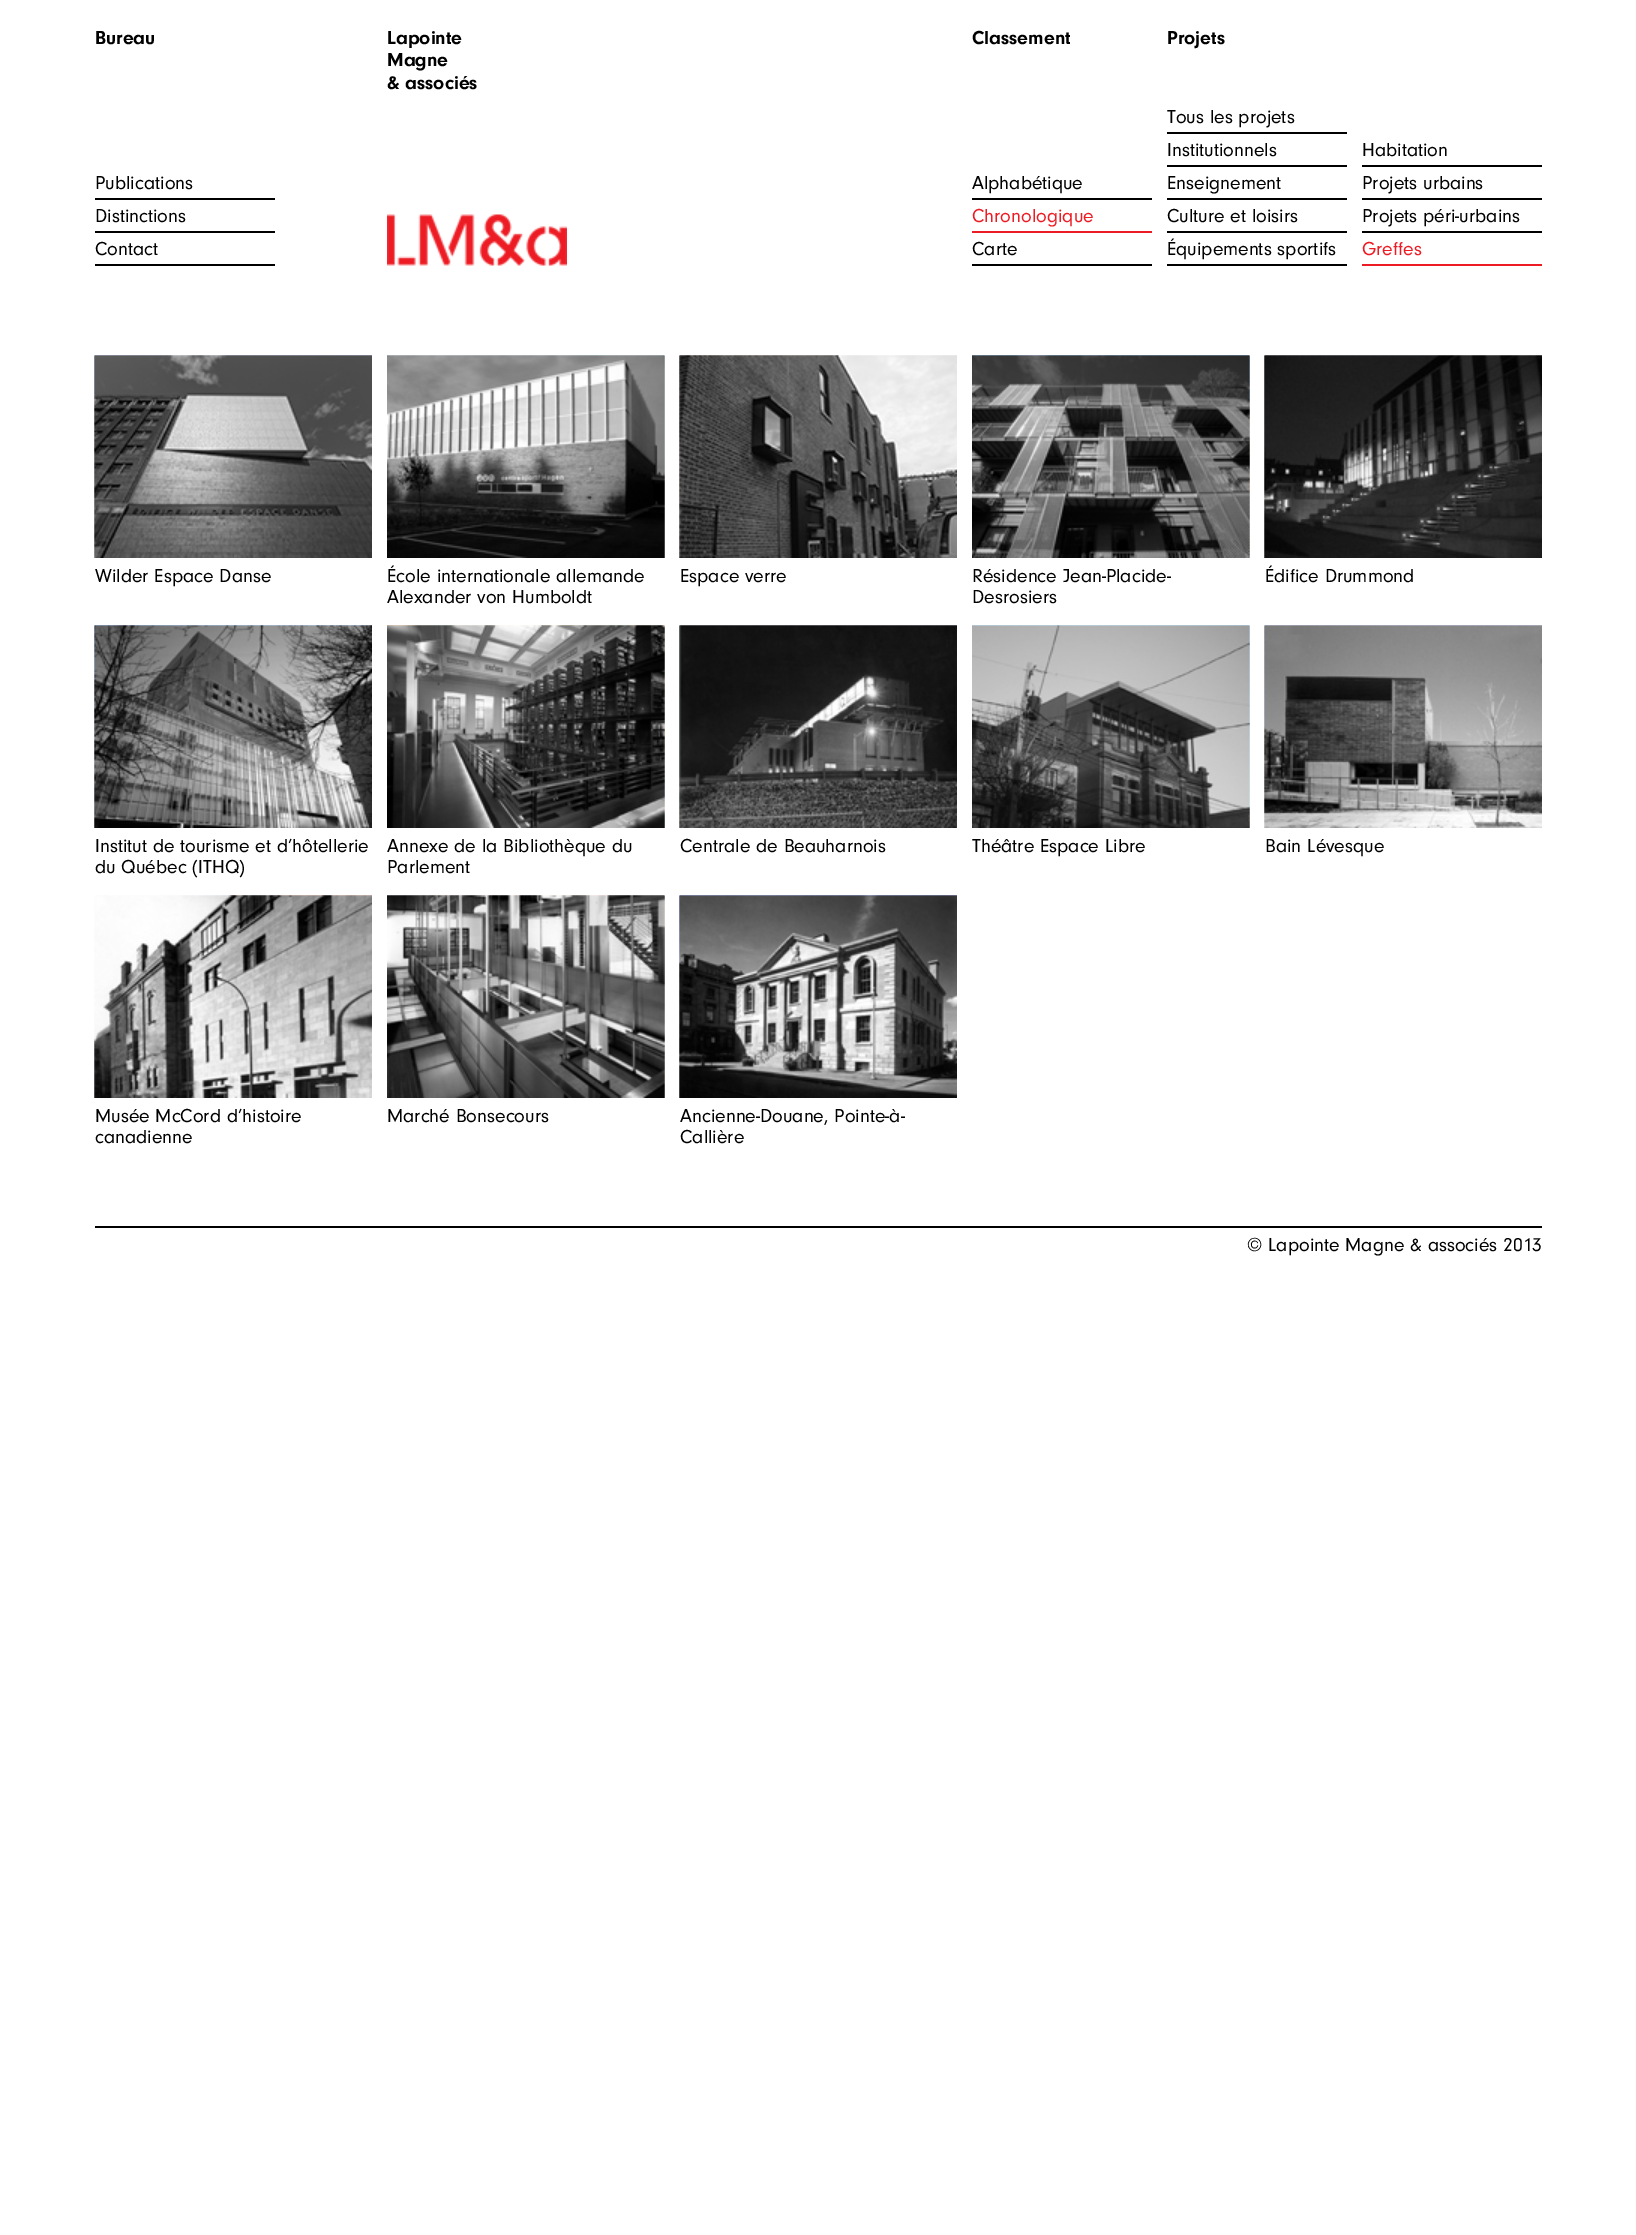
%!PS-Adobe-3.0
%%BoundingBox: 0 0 1636 2235
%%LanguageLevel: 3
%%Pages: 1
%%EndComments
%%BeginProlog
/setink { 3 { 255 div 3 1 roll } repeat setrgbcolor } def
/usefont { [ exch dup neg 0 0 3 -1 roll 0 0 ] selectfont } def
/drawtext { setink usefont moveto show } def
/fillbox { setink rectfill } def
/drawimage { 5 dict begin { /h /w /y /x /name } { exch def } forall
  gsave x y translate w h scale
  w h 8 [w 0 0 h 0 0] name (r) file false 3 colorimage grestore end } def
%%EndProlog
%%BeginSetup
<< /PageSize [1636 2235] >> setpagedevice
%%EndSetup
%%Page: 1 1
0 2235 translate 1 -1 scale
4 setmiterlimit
0 0 1636 2235 255 255 255 fillbox
(Bureau) 95 44 /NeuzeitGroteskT-Bold 19.5 0 0 0 drawtext
95 198 180 2 0 0 0 fillbox
(Publications) 95 189 /NeuzeitGroteskT-Regular 19.5 0 0 0 drawtext
95 231 180 2 0 0 0 fillbox
(Distinctions) 95 222 /NeuzeitGroteskT-Regular 19.5 0 0 0 drawtext
95 264 180 2 0 0 0 fillbox
(Contact) 95 255 /NeuzeitGroteskT-Regular 19.5 0 0 0 drawtext
(Lapointe) 387 44 /NeuzeitGroteskT-Bold 19.5 0 0 0 drawtext
(Magne) 387 66 /NeuzeitGroteskT-Bold 19.5 0 0 0 drawtext
(& associés) 387 89 /NeuzeitGroteskT-Bold 19.5 0 0 0 drawtext
(assets/img1.rgb) 387 214 180 52 drawimage
(Classement) 972 44 /NeuzeitGroteskT-Bold 19.5 0 0 0 drawtext
972 198 180 2 0 0 0 fillbox
(Alphabétique) 972 189 /NeuzeitGroteskT-Regular 19.5 0 0 0 drawtext
972 231 180 2 237 28 36 fillbox
(Chronologique) 972 222 /NeuzeitGroteskT-Regular 19.5 237 28 36 drawtext
972 264 180 2 0 0 0 fillbox
(Carte) 972 255 /NeuzeitGroteskT-Regular 19.5 0 0 0 drawtext
(Projets) 1167 44 /NeuzeitGroteskT-Bold 19.5 0 0 0 drawtext
1167 132 180 2 0 0 0 fillbox
(Tous les projets) 1167 123 /NeuzeitGroteskT-Regular 19.5 0 0 0 drawtext
1167 165 180 2 0 0 0 fillbox
(Institutionnels) 1167 156 /NeuzeitGroteskT-Regular 19.5 0 0 0 drawtext
1167 198 180 2 0 0 0 fillbox
(Enseignement) 1167 189 /NeuzeitGroteskT-Regular 19.5 0 0 0 drawtext
1167 231 180 2 0 0 0 fillbox
(Culture et loisirs) 1167 222 /NeuzeitGroteskT-Regular 19.5 0 0 0 drawtext
1167 264 180 2 0 0 0 fillbox
(Équipements sportifs) 1167 255 /NeuzeitGroteskT-Regular 19.5 0 0 0 drawtext
1362 165 180 2 0 0 0 fillbox
(Habitation) 1362 156 /NeuzeitGroteskT-Regular 19.5 0 0 0 drawtext
1362 198 180 2 0 0 0 fillbox
(Projets urbains) 1362 189 /NeuzeitGroteskT-Regular 19.5 0 0 0 drawtext
1362 231 180 2 0 0 0 fillbox
(Projets péri-urbains) 1362 222 /NeuzeitGroteskT-Regular 19.5 0 0 0 drawtext
1362 264 180 2 237 28 36 fillbox
(Greffes) 1362 255 /NeuzeitGroteskT-Regular 19.5 237 28 36 drawtext
(assets/img2.rgb) 94 355 278 203 drawimage
(assets/img3.rgb) 94 355 278 203 drawimage
(Wilder Espace Danse) 95 582 /NeuzeitGroteskT-Regular 19.5 0 0 0 drawtext
(assets/img4.rgb) 387 355 278 203 drawimage
(assets/img5.rgb) 387 355 278 203 drawimage
(École internationale allemande) 387 582 /NeuzeitGroteskT-Regular 19.5 0 0 0 drawtext
(Alexander von Humboldt) 387 603 /NeuzeitGroteskT-Regular 19.5 0 0 0 drawtext
(assets/img6.rgb) 679 355 278 203 drawimage
(assets/img7.rgb) 679 355 278 203 drawimage
(Espace verre) 680 582 /NeuzeitGroteskT-Regular 19.5 0 0 0 drawtext
(assets/img8.rgb) 972 355 278 203 drawimage
(assets/img9.rgb) 972 355 278 203 drawimage
(Résidence Jean-Placide-) 972 582 /NeuzeitGroteskT-Regular 19.5 0 0 0 drawtext
(Desrosiers) 972 603 /NeuzeitGroteskT-Regular 19.5 0 0 0 drawtext
(assets/img10.rgb) 1264 355 278 203 drawimage
(assets/img11.rgb) 1264 355 278 203 drawimage
(Édifice Drummond) 1265 582 /NeuzeitGroteskT-Regular 19.5 0 0 0 drawtext
(assets/img12.rgb) 94 625 278 203 drawimage
(assets/img13.rgb) 94 625 278 203 drawimage
(Institut de tourisme et d’hôtellerie) 95 852 /NeuzeitGroteskT-Regular 19.5 0 0 0 drawtext
(du Québec \(ITHQ\)) 95 873 /NeuzeitGroteskT-Regular 19.5 0 0 0 drawtext
(assets/img14.rgb) 387 625 278 203 drawimage
(assets/img15.rgb) 387 625 278 203 drawimage
(Annexe de la Bibliothèque du) 387 852 /NeuzeitGroteskT-Regular 19.5 0 0 0 drawtext
(Parlement) 387 873 /NeuzeitGroteskT-Regular 19.5 0 0 0 drawtext
(assets/img16.rgb) 679 625 278 203 drawimage
(assets/img17.rgb) 679 625 278 203 drawimage
(Centrale de Beauharnois) 680 852 /NeuzeitGroteskT-Regular 19.5 0 0 0 drawtext
(assets/img18.rgb) 972 625 278 203 drawimage
(assets/img19.rgb) 972 625 278 203 drawimage
(Théâtre Espace Libre) 972 852 /NeuzeitGroteskT-Regular 19.5 0 0 0 drawtext
(assets/img20.rgb) 1264 625 278 203 drawimage
(assets/img21.rgb) 1264 625 278 203 drawimage
(Bain Lévesque) 1265 852 /NeuzeitGroteskT-Regular 19.5 0 0 0 drawtext
(assets/img22.rgb) 94 895 278 203 drawimage
(assets/img23.rgb) 94 895 278 203 drawimage
(Musée McCord d’histoire) 95 1122 /NeuzeitGroteskT-Regular 19.5 0 0 0 drawtext
(canadienne) 95 1143 /NeuzeitGroteskT-Regular 19.5 0 0 0 drawtext
(assets/img24.rgb) 387 895 278 203 drawimage
(assets/img25.rgb) 387 895 278 203 drawimage
(Marché Bonsecours) 387 1122 /NeuzeitGroteskT-Regular 19.5 0 0 0 drawtext
(assets/img26.rgb) 679 895 278 203 drawimage
(assets/img27.rgb) 679 895 278 203 drawimage
(Ancienne-Douane, Pointe-à-) 680 1122 /NeuzeitGroteskT-Regular 19.5 0 0 0 drawtext
(Callière) 680 1143 /NeuzeitGroteskT-Regular 19.5 0 0 0 drawtext
95 1226 1447 2 0 0 0 fillbox
(© Lapointe Magne & associés 2013) 1247 1251 /NeuzeitGroteskT-Regular 19.5 0 0 0 drawtext
showpage
%%EOF
